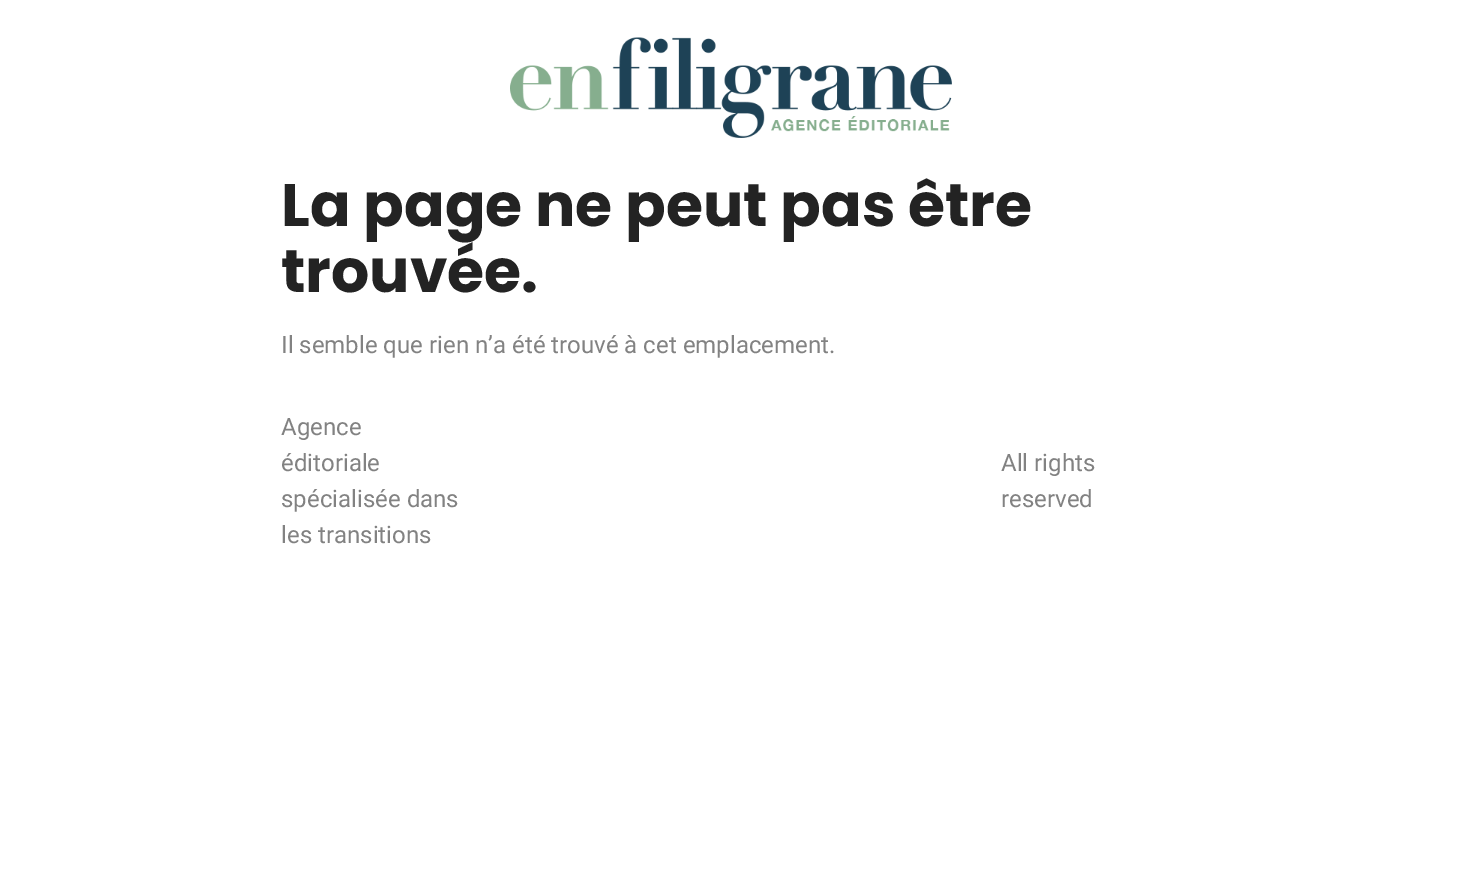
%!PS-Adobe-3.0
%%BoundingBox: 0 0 1461 894
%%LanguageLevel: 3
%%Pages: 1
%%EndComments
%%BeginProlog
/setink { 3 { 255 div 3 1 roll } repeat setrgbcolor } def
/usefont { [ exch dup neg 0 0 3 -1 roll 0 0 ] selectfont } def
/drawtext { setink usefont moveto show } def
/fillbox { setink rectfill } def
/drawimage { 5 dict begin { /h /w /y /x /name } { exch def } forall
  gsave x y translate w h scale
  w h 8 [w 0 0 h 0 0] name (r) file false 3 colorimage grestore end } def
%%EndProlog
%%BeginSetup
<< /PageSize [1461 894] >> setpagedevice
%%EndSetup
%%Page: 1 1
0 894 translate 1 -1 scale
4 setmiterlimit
0 0 1461 894 255 255 255 fillbox
(assets/img1.rgb) 510 37 442 101 drawimage
(La page ne peut pas être) 281 226 /Poppins-Bold 60 35 35 35 drawtext
(trouvée.) 281 292 /Poppins-Bold 60 35 35 35 drawtext
(Il semble que rien n’a été trouvé à cet emplacement.) 281 353 /Roboto-Regular 24 130 130 130 drawtext
(Agence) 281 435 /Roboto-Regular 24 130 130 130 drawtext
(éditoriale) 281 471 /Roboto-Regular 24 130 130 130 drawtext
(spécialisée dans) 281 507 /Roboto-Regular 24 130 130 130 drawtext
(les transitions) 281 543 /Roboto-Regular 24 130 130 130 drawtext
(All rights) 1001 471 /Roboto-Regular 24 130 130 130 drawtext
(reserved) 1001 507 /Roboto-Regular 24 130 130 130 drawtext
showpage
%%EOF
